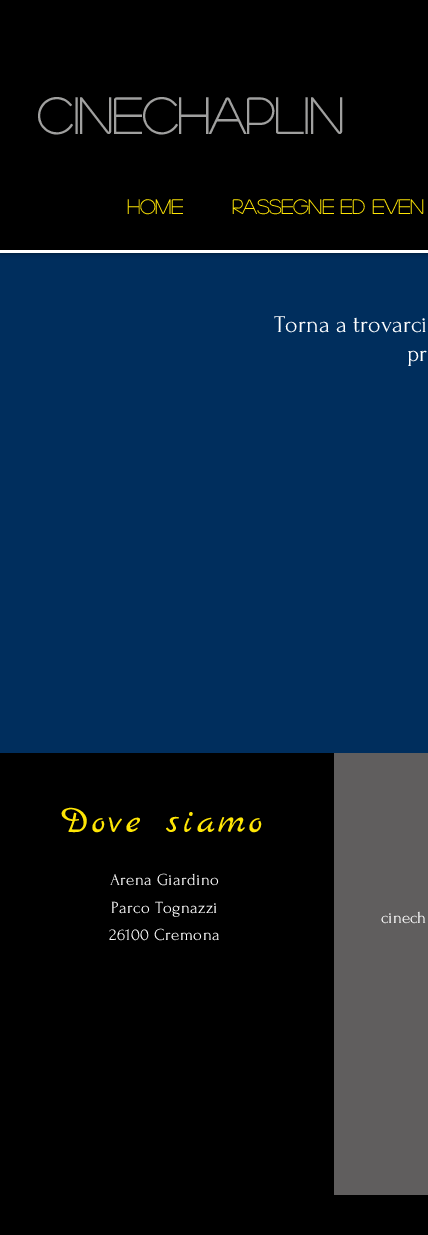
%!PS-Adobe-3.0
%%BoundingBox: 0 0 428 1235
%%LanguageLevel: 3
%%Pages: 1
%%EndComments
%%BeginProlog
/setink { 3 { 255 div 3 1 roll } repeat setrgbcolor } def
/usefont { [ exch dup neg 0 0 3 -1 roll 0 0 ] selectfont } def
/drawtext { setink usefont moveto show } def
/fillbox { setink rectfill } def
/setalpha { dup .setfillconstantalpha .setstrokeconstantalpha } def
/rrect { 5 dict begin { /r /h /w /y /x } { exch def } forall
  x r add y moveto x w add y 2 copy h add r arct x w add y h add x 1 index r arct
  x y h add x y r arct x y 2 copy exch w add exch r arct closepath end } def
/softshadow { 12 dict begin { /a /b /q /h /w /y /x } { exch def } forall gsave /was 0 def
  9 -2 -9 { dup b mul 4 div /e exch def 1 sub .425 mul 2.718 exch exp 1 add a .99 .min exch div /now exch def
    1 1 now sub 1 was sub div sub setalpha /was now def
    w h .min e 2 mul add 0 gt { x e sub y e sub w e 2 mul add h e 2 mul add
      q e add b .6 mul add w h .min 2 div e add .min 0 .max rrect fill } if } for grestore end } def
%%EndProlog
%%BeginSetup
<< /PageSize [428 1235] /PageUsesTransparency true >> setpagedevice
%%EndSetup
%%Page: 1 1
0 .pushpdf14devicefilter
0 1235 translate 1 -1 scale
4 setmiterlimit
0 0 428 1235 0 46 93 fillbox
0 0 0 setink
0 -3 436 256 0 2.5 0.5 softshadow
0 250 428 3 255 255 255 fillbox
0 0 428 250 0 0 0 fillbox
(CineChaplin) 37 134 /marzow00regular-Bold 50 160 160 159 drawtext
(HOME) 127 214 /marzow00regular-Bold 20 255 230 5 drawtext
(RASSEGNE ED EVEN) 232 214 /marzow00regular-Bold 20 255 230 5 drawtext
(Torna a trovarci) 274 332 /Forum-Regular 24 255 255 255 drawtext
(pr) 407 361 /Forum-Regular 24 255 255 255 drawtext
334 753 94 442 96 94 94 fillbox
0 753 334 442 0 0 0 fillbox
/MarckScript-Regular 38 usefont
255 230 5 setink
62 832 moveto 3.75 0 (Dove siamo) ashow
/Forum-Regular 17 usefont
255 255 255 setink
110 885 moveto 0.3 0 (Arena Giardino) ashow
111 913 moveto 0.3 0 (Parco Tognazzi) ashow
109 940 moveto 0.3 0 (26100 Cremona) ashow
(cinech) 381 923 /Forum-Regular 17 255 255 255 drawtext
0 1195 428 40 0 0 0 fillbox
.poppdf14devicefilter showpage
%%EOF
